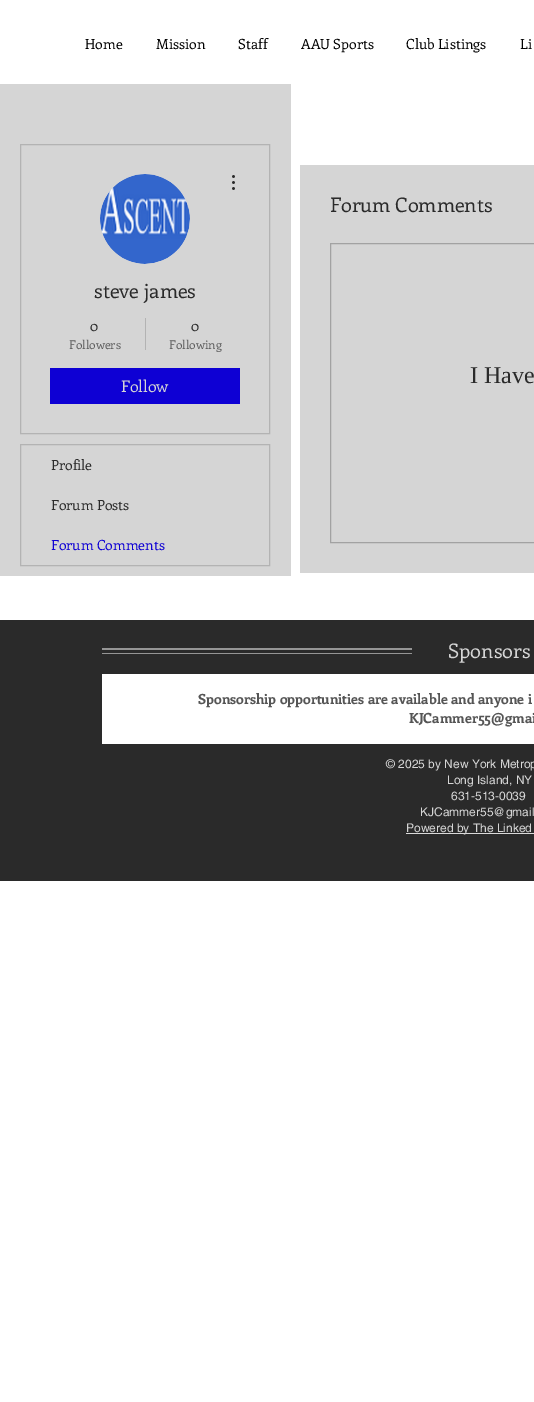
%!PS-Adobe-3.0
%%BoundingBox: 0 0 534 1402
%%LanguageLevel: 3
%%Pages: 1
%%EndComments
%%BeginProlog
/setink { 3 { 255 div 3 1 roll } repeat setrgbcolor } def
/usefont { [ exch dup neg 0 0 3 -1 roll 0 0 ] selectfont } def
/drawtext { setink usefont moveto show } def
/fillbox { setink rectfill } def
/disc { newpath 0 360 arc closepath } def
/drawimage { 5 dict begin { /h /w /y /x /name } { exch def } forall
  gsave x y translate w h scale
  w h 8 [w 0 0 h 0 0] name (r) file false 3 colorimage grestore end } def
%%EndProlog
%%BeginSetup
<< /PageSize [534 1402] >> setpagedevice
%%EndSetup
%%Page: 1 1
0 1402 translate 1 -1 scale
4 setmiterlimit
0 0 534 1402 255 255 255 fillbox
(Home) 85 49 /Enriqueta-Regular 14 0 0 0 drawtext
(Mission) 156 49 /Enriqueta-Regular 14 0 0 0 drawtext
(Staff) 238 49 /Enriqueta-Regular 14 0 0 0 drawtext
(AAU Sports) 301 49 /Enriqueta-Regular 14 0 0 0 drawtext
(Club Listings) 406 49 /Enriqueta-Regular 14 0 0 0 drawtext
(Li) 520 49 /Enriqueta-Regular 14 0 0 0 drawtext
0 84 291 492 213 213 213 fillbox
179 179 179 setink
20.5 144.5 249 289 rectstroke
216 216 216 setink
145 219 45 disc fill
(assets/img1.rgb) 100 174 90 90 drawimage
(assets/img2.rgb) 232 175 3 15 drawimage
(steve james) 94 298 /Enriqueta-Regular 20 42 42 42 drawtext
(0) 90 331 /Enriqueta-Regular 14 42 42 42 drawtext
(Followers) 69 349 /Enriqueta-Regular 12 93 93 93 drawtext
145 318 1 32 179 179 179 fillbox
(0) 191 331 /Enriqueta-Regular 14 42 42 42 drawtext
(Following) 169 349 /Enriqueta-Regular 12 93 93 93 drawtext
50 368 190 36 14 0 212 fillbox
(Follow) 121 392 /Enriqueta-Regular 16 213 213 213 drawtext
179 179 179 setink
20.5 444.5 249 121 rectstroke
(Profile) 51 470 /Enriqueta-Regular 14 42 42 42 drawtext
(Forum Posts) 51 510 /Enriqueta-Regular 14 42 42 42 drawtext
(Forum Comments) 51 550 /Enriqueta-Regular 14 14 0 212 drawtext
300 165 234 408 213 213 213 fillbox
(Forum Comments) 330 212 /Enriqueta-Regular 20 42 42 42 drawtext
162 162 162 setink
330.5 243.5 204 299 rectstroke
(I Have) 470 383 /LiberationSerif-Regular 24 42 42 42 drawtext
0 620 534 261 42 42 42 fillbox
102 648 310 2 149 149 149 fillbox
102 653 310 1 149 149 149 fillbox
(Sponsors) 448 658 /Enriqueta-Regular 20 213 213 213 drawtext
102 674 432 70 255 255 255 fillbox
(Sponsorship opportunities are available and anyone i) 198 704 /Enriqueta-Bold 14 85 85 85 drawtext
(KJCammer55@gmai) 409 723 /Enriqueta-Bold 14 85 85 85 drawtext
(© 2025 by New York Metrop) 386 768 /helvetica-Regular 12 213 213 213 drawtext
(Long Island, NY) 447 784 /helvetica-Regular 12 213 213 213 drawtext
(631-513-0039) 451 800 /helvetica-Regular 12 213 213 213 drawtext
(KJCammer55@gmail) 420 816 /helvetica-Regular 12 213 213 213 drawtext
406 833 128 1 217 217 217 fillbox
(Powered by The Linked) 406 832 /helvetica-Regular 12 213 213 213 drawtext
showpage
%%EOF
